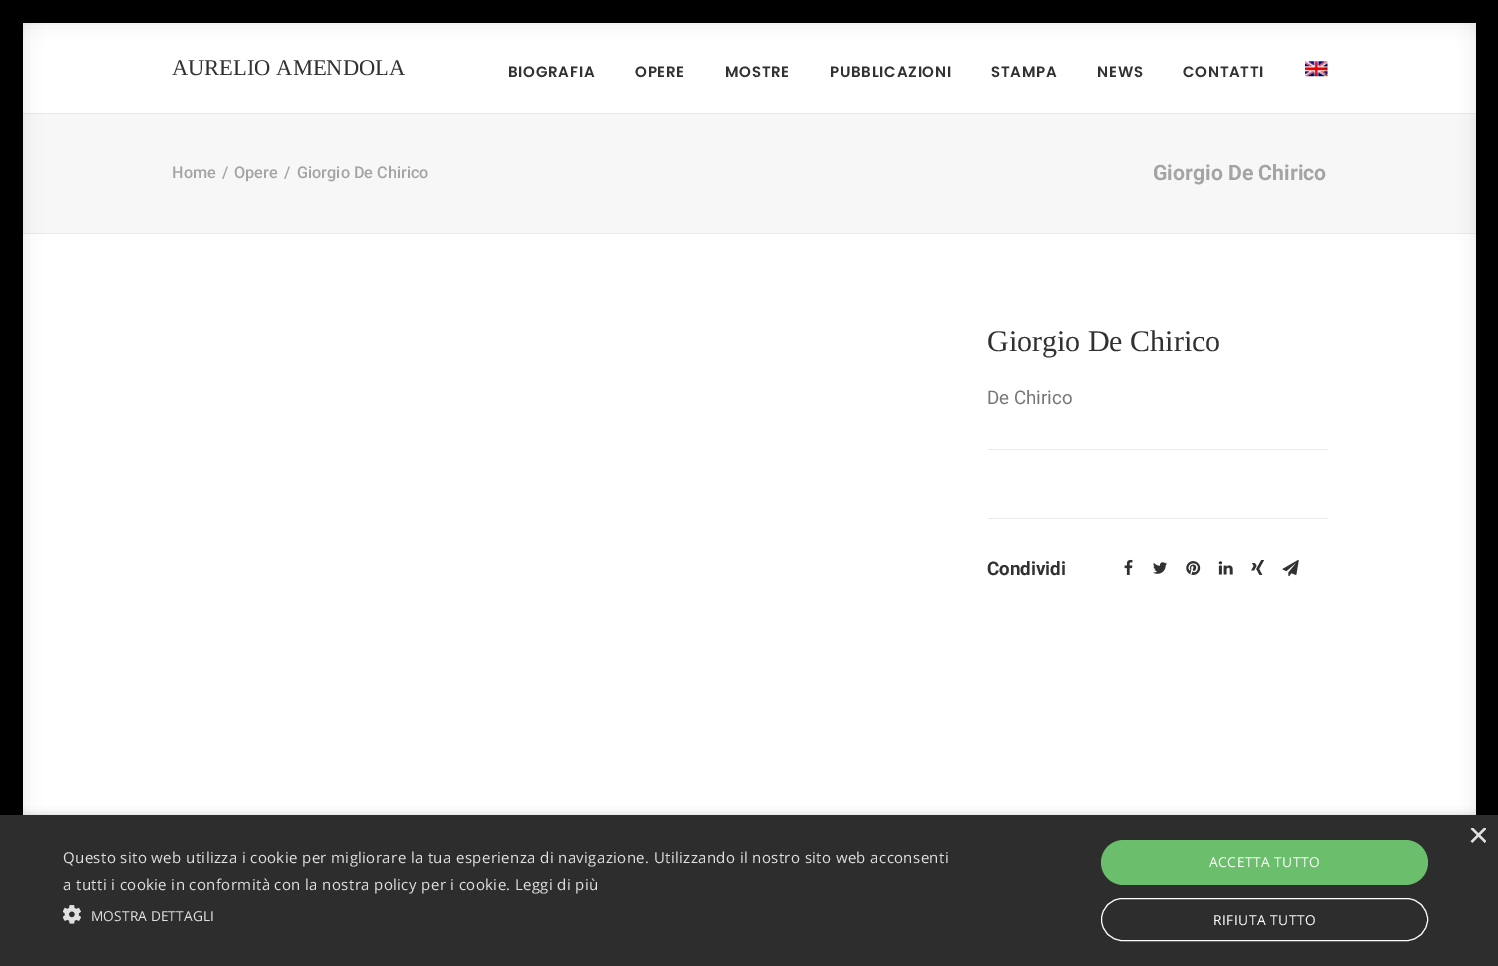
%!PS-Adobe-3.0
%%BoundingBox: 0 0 1498 966
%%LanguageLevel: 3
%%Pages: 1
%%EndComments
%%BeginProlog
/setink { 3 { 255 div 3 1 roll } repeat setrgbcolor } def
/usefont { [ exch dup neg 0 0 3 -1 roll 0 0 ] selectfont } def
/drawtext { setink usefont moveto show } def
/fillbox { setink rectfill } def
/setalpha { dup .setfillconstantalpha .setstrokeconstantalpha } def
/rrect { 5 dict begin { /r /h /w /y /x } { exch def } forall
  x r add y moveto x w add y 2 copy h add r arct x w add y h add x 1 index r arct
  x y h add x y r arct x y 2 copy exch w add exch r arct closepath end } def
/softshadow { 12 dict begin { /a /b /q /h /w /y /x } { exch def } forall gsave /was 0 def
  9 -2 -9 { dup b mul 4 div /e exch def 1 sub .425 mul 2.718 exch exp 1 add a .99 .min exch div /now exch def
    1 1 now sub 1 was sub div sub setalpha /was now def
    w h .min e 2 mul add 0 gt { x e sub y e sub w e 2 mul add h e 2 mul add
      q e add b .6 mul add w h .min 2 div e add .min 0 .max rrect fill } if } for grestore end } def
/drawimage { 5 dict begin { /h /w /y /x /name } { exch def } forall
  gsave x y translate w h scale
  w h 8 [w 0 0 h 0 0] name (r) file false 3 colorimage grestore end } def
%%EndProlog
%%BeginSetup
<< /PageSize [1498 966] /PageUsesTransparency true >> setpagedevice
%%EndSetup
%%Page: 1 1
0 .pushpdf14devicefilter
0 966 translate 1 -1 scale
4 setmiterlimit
0 0 1498 966 247 247 247 fillbox
23 23 1453 90 255 255 255 fillbox
0 0 0 setink
0 0 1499 23 0 9 0.1 softshadow
23 113 1455 1 234 234 234 fillbox
23 233 1455 1 234 234 234 fillbox
23 234 1453 581 255 255 255 fillbox
0 0 0 setink
0 0 23 966 0 9 0.1 softshadow
0 0 23 815 0 0 0 fillbox
1476 0 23 966 0 9 0.1 softshadow
23 0 1453 23 0 0 0 fillbox
1476 0 22 815 0 0 0 fillbox
(AURELIO AMENDOLA) 172 75 /LiberationSerif-Regular 22.5 48 49 51 drawtext
/Poppins-SemiBold 15 usefont
508 77 moveto 0.75 0 (BIOGRAFIA) ashow
635 77 moveto 0.75 0 (OPERE) ashow
725 77 moveto 0.75 0 (MOSTRE) ashow
830 77 moveto 0.75 0 (PUBBLICAZIONI) ashow
991 77 moveto 0.75 0 (STAMPA) ashow
1097 77 moveto 0.75 0 (NEWS) ashow
1183 77 moveto 0.75 0 (CONTATTI) ashow
(assets/img1.rgb) 1305 61 23 16 drawimage
(Home) 172 178 /Roboto-Medium 16.25 164 164 164 drawtext
(/) 222 178 /Roboto-Medium 16.25 164 164 164 drawtext
(Opere) 234 178 /Roboto-Medium 16.25 164 164 164 drawtext
(/) 284 178 /Roboto-Medium 16.25 164 164 164 drawtext
(Giorgio De Chirico) 297 178 /Roboto-Medium 16.25 164 164 164 drawtext
(Giorgio De Chirico) 1153 180 /Roboto-Bold 21.25 164 164 164 drawtext
(Giorgio De Chirico) 987 351 /LiberationSerif-Regular 30 48 49 51 drawtext
(De Chirico) 987 404 /Roboto-Regular 18.75 119 119 119 drawtext
988 449 340 1 234 234 234 fillbox
988 518 340 1 234 234 234 fillbox
(Condividi) 987 575 /Roboto-Bold 18.75 48 49 51 drawtext
(assets/img2.rgb) 1124 559 9 16 drawimage
(assets/img3.rgb) 1153 562 14 12 drawimage
(assets/img4.rgb) 1186 561 15 14 drawimage
(assets/img5.rgb) 1218 561 15 14 drawimage
(assets/img6.rgb) 1251 560 13 15 drawimage
(assets/img7.rgb) 1282 559 17 18 drawimage
0 0 0 setink
1 818 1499 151 0 5 0.35 softshadow
0 815 1498 151 45 45 45 fillbox
gsave
1468 828 18 18 rectclip
(×) 1468 847 /LiberationSans-Regular 36 224 224 224 drawtext
grestore
/OpenSans-Regular 15 usefont
224 224 224 setink
63 863 moveto 0.38 0 (Questo sito web utilizza i cookie per migliorare la tua esperienza di navigazione. Utilizzando il nostro sito web acconsenti) ashow
63 890 moveto 0.38 0 (a tutti i cookie in conformità con la nostra policy per i cookie. Leggi di più) ashow
(assets/img8.rgb) 63 905 18 19 drawimage
/OpenSans-Regular 13.75 usefont
91 921 moveto 0.1 0 (MOSTRA DETTAGLI) ashow
107 190 107 setink
1101 840 327 45 22.5 rrect fill
255 255 255 setink
1209 867 moveto 0.5 0 (ACCETTA TUTTO) ashow
1101.5 898.5 326 42 21 rrect stroke
1213 925 moveto 0.5 0 (RIFIUTA TUTTO) ashow
.poppdf14devicefilter showpage
%%EOF
